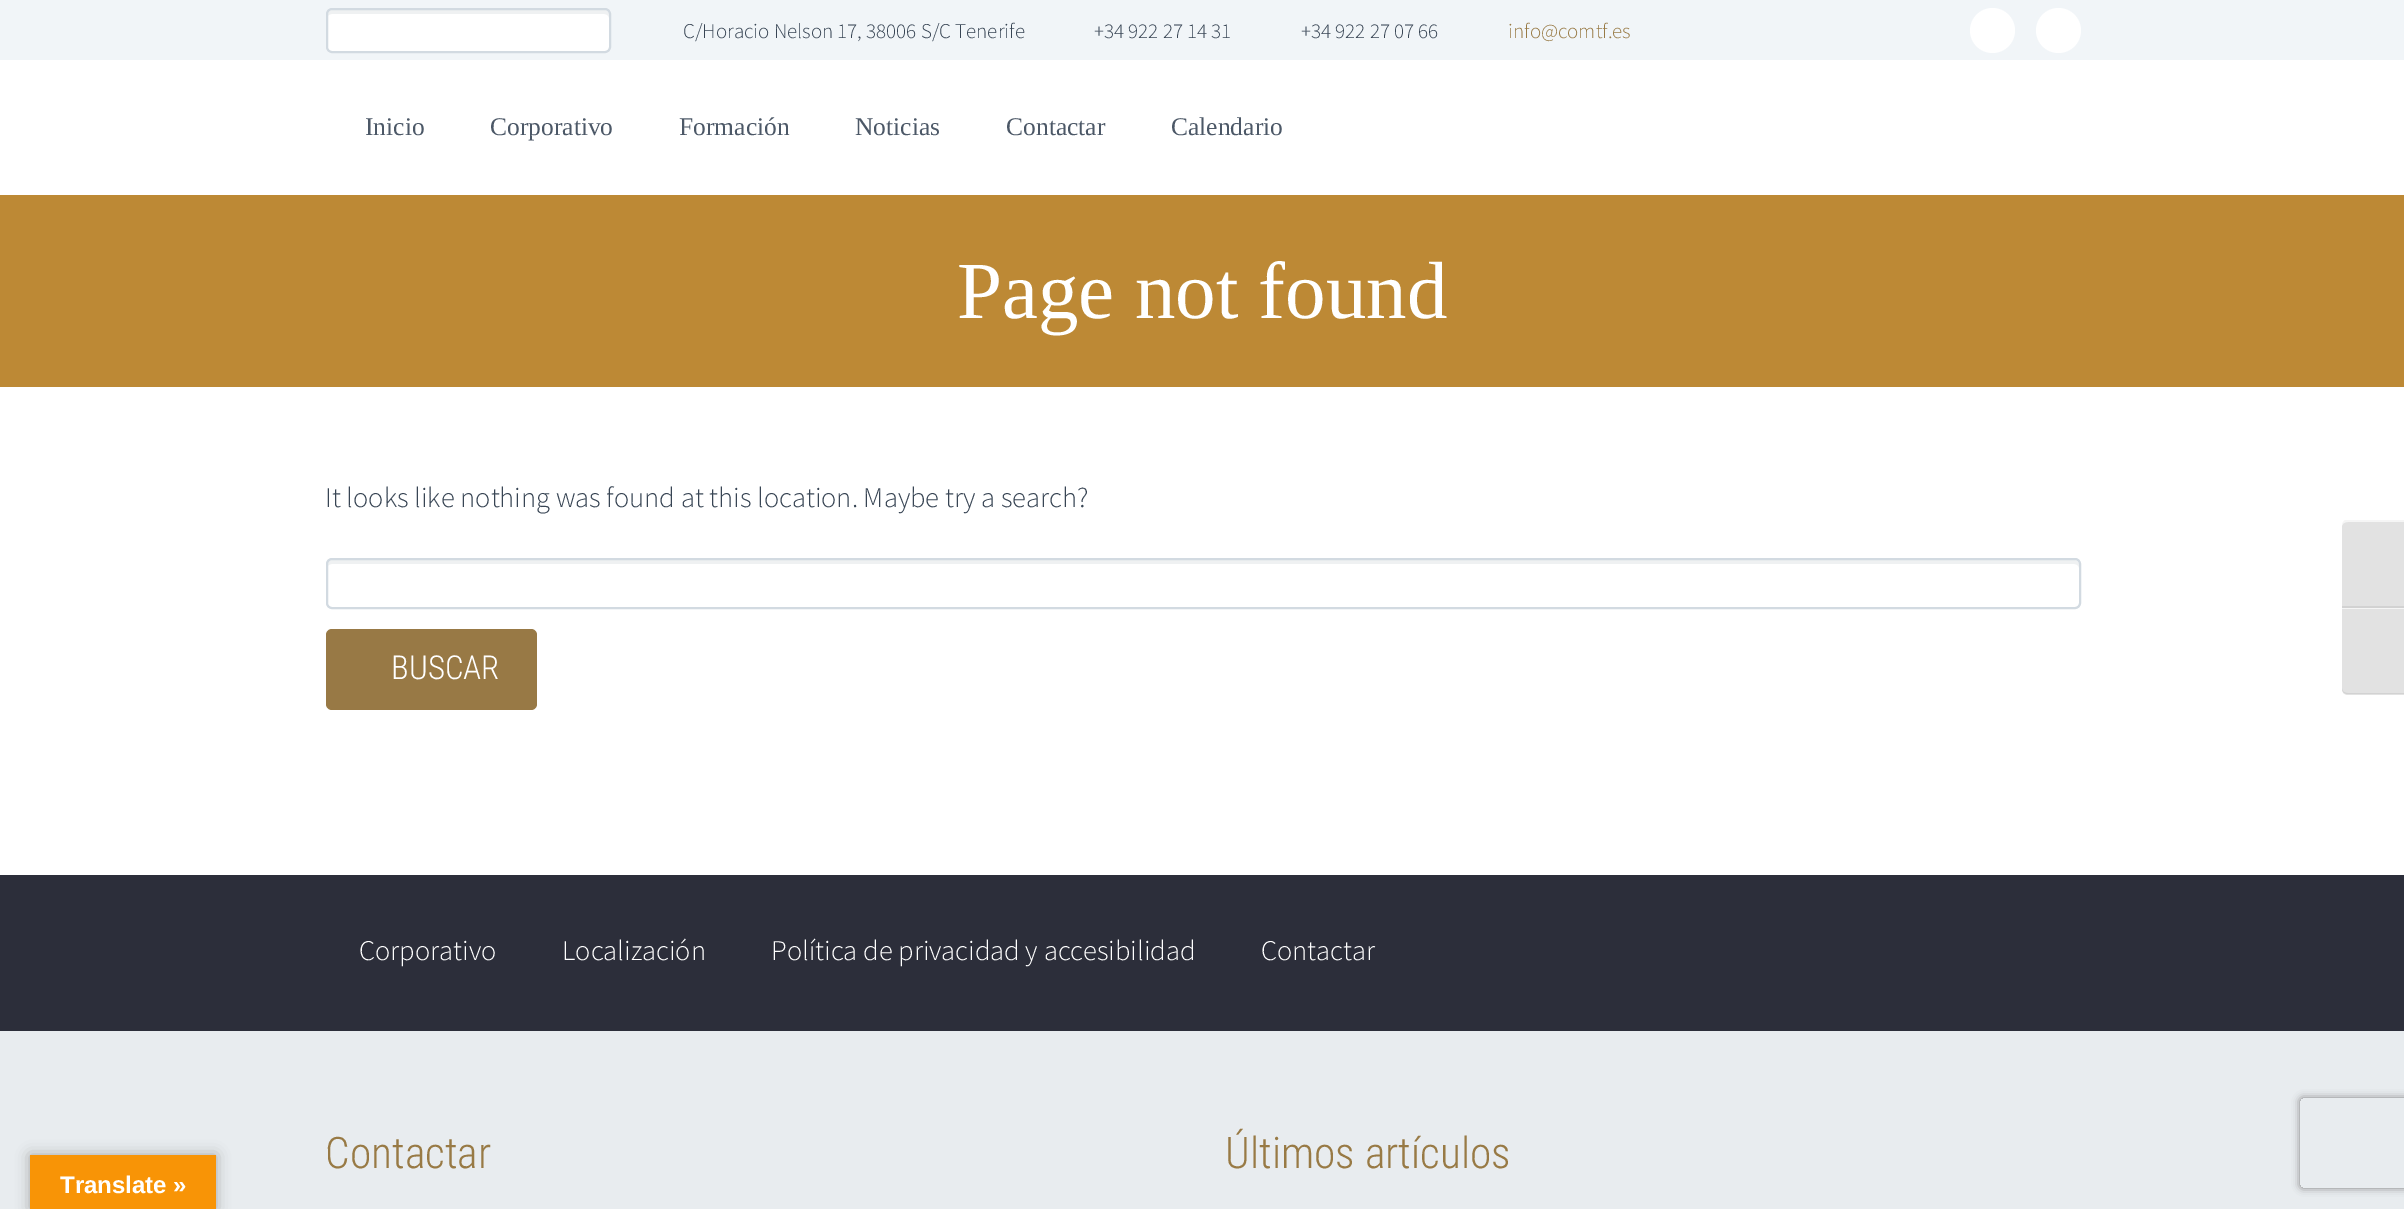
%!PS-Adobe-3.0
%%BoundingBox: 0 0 2404 1209
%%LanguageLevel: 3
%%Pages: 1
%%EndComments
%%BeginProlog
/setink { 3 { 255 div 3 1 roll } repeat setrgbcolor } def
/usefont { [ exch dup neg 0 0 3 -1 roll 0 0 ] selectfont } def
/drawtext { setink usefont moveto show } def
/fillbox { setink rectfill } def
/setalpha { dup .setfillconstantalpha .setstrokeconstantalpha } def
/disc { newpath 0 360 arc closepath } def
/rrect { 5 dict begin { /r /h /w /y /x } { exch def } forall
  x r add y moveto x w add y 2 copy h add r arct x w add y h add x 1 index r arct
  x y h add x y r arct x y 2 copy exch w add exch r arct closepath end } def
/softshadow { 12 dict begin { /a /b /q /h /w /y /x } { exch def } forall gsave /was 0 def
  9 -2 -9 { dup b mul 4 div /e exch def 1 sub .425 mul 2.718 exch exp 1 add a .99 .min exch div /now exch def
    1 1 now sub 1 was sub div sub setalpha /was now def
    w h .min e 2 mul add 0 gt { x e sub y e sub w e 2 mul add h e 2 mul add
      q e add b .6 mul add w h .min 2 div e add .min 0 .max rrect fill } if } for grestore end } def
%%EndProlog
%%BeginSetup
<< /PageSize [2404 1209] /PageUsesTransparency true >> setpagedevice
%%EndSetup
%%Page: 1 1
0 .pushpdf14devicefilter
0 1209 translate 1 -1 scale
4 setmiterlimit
0 0 2404 1209 232 236 239 fillbox
0 0 2404 60 241 245 248 fillbox
255 255 255 setink
326 8 285 45 6 rrect fill
239 241 242 setink
332 14 moveto 604 14 lineto 607 14 609 16 609 18 curveto 609 14 lineto 609 11 607 9 604 9 curveto 332 9 lineto 329 9 327 11 327 14 curveto 327 18 lineto 327 16 329 14 332 14 curveto closepath fill
210 218 225 setink
2 setlinewidth
327 9 283 43 5 rrect stroke
(C/Horacio Nelson 17, 38006 S/C Tenerife) 683 38 /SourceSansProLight-Light 21 56 69 84 drawtext
(+34 922 27 14 31) 1094 38 /SourceSansProLight-Light 21 56 69 84 drawtext
(+34 922 27 07 66) 1301 38 /SourceSansProLight-Light 21 56 69 84 drawtext
(info@comtf.es) 1508 38 /SourceSansProLight-Light 21 152 122 69 drawtext
255 255 255 setink
1992.5 30.5 22.5 disc fill
2058.5 30.5 22.5 disc fill
0 60 2404 135 255 255 255 fillbox
(Inicio) 365 135 /LiberationSerif-Regular 25.5 76 88 103 drawtext
(Corporativo) 490 135 /LiberationSerif-Regular 25.5 76 88 103 drawtext
(Formación) 679 135 /LiberationSerif-Regular 25.5 76 88 103 drawtext
(Noticias) 855 135 /LiberationSerif-Regular 25.5 76 88 103 drawtext
(Contactar) 1006 135 /LiberationSerif-Regular 25.5 76 88 103 drawtext
(Calendario) 1171 135 /LiberationSerif-Regular 25.5 76 88 103 drawtext
0 195 2404 192 189 137 53 fillbox
(Page not found) 957 318 /LiberationSerif-Regular 81 255 255 255 drawtext
0 387 2404 488 255 255 255 fillbox
(It looks like nothing was found at this location. Maybe try a search?) 325 507 /SourceSansProLight-Light 28.5 56 69 84 drawtext
239 241 242 setink
332 564 moveto 2074 564 lineto 2077 564 2079 566 2079 568 curveto 2079 565 lineto 2079 562 2077 560 2074 560 curveto 332 560 lineto 329 560 327 562 327 565 curveto 327 568 lineto 327 566 329 564 332 564 curveto closepath fill
210 218 225 setink
327 559 1753 49 5 rrect stroke
152 121 69 setink
326 629 211 81 6 rrect fill
(BUSCAR) 391 679 /RobotoCondensed-Light 33 255 255 255 drawtext
0 875 2404 156 44 46 58 fillbox
(Corporativo) 359 960 /SourceSansProLight-Light 28.5 255 255 255 drawtext
(Localización) 562 960 /SourceSansProLight-Light 28.5 255 255 255 drawtext
(Política de privacidad y accesibilidad) 771 960 /SourceSansProLight-Light 28.5 255 255 255 drawtext
(Contactar) 1261 960 /SourceSansProLight-Light 28.5 255 255 255 drawtext
(Contactar) 325 1168 /RobotoCondensed-Light 43.5 152 122 69 drawtext
(Últimos artículos) 1225 1168 /RobotoCondensed-Light 43.5 152 122 69 drawtext
226 226 226 setink
2348 521 moveto 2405 521 lineto 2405 608 lineto 2342 608 lineto 2342 527 lineto 2342 523.5 2344.5 521 2348 521 curveto closepath fill
245 245 245 setink
2348 522 moveto 2404 522 lineto 2404 520 lineto 2345 520 lineto 2343 521 2342 524 2342 526 curveto 2342 524 2344 522 2348 522 curveto closepath fill
2342 606 62 2 210 210 210 fillbox
226 226 226 setink
2342 608 moveto 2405 608 lineto 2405 695 lineto 2348 695 lineto 2344.5 695 2342 692.5 2342 689 curveto closepath fill
2342 608 62 1 245 245 245 fillbox
210 210 210 setink
2404 694 moveto 2404 693 lineto 2348 693 lineto 2344 693 2342 691 2342 688 curveto 2342 692 2344 694 2348 694 curveto closepath fill
0 0 0 setink
30 1155 186 54 0 7 0.3 softshadow
30 1155 186 54 248 148 6 fillbox
(Translate ») 60 1193 /LiberationSans-Bold 24 255 255 255 drawtext
gsave
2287 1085 moveto 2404 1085 lineto 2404 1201 lineto 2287 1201 lineto closepath 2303 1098 moveto 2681 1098 lineto 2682.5 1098 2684 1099.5 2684 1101 curveto 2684 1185 lineto 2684 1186.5 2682.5 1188 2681 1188 curveto 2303 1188 lineto 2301.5 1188 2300 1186.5 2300 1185 curveto 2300 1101 lineto 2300 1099.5 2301.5 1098 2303 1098 curveto closepath eoclip newpath
128 128 128 setink
2300 1098 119 90 3 4 1 softshadow
grestore
.poppdf14devicefilter showpage
%%EOF
